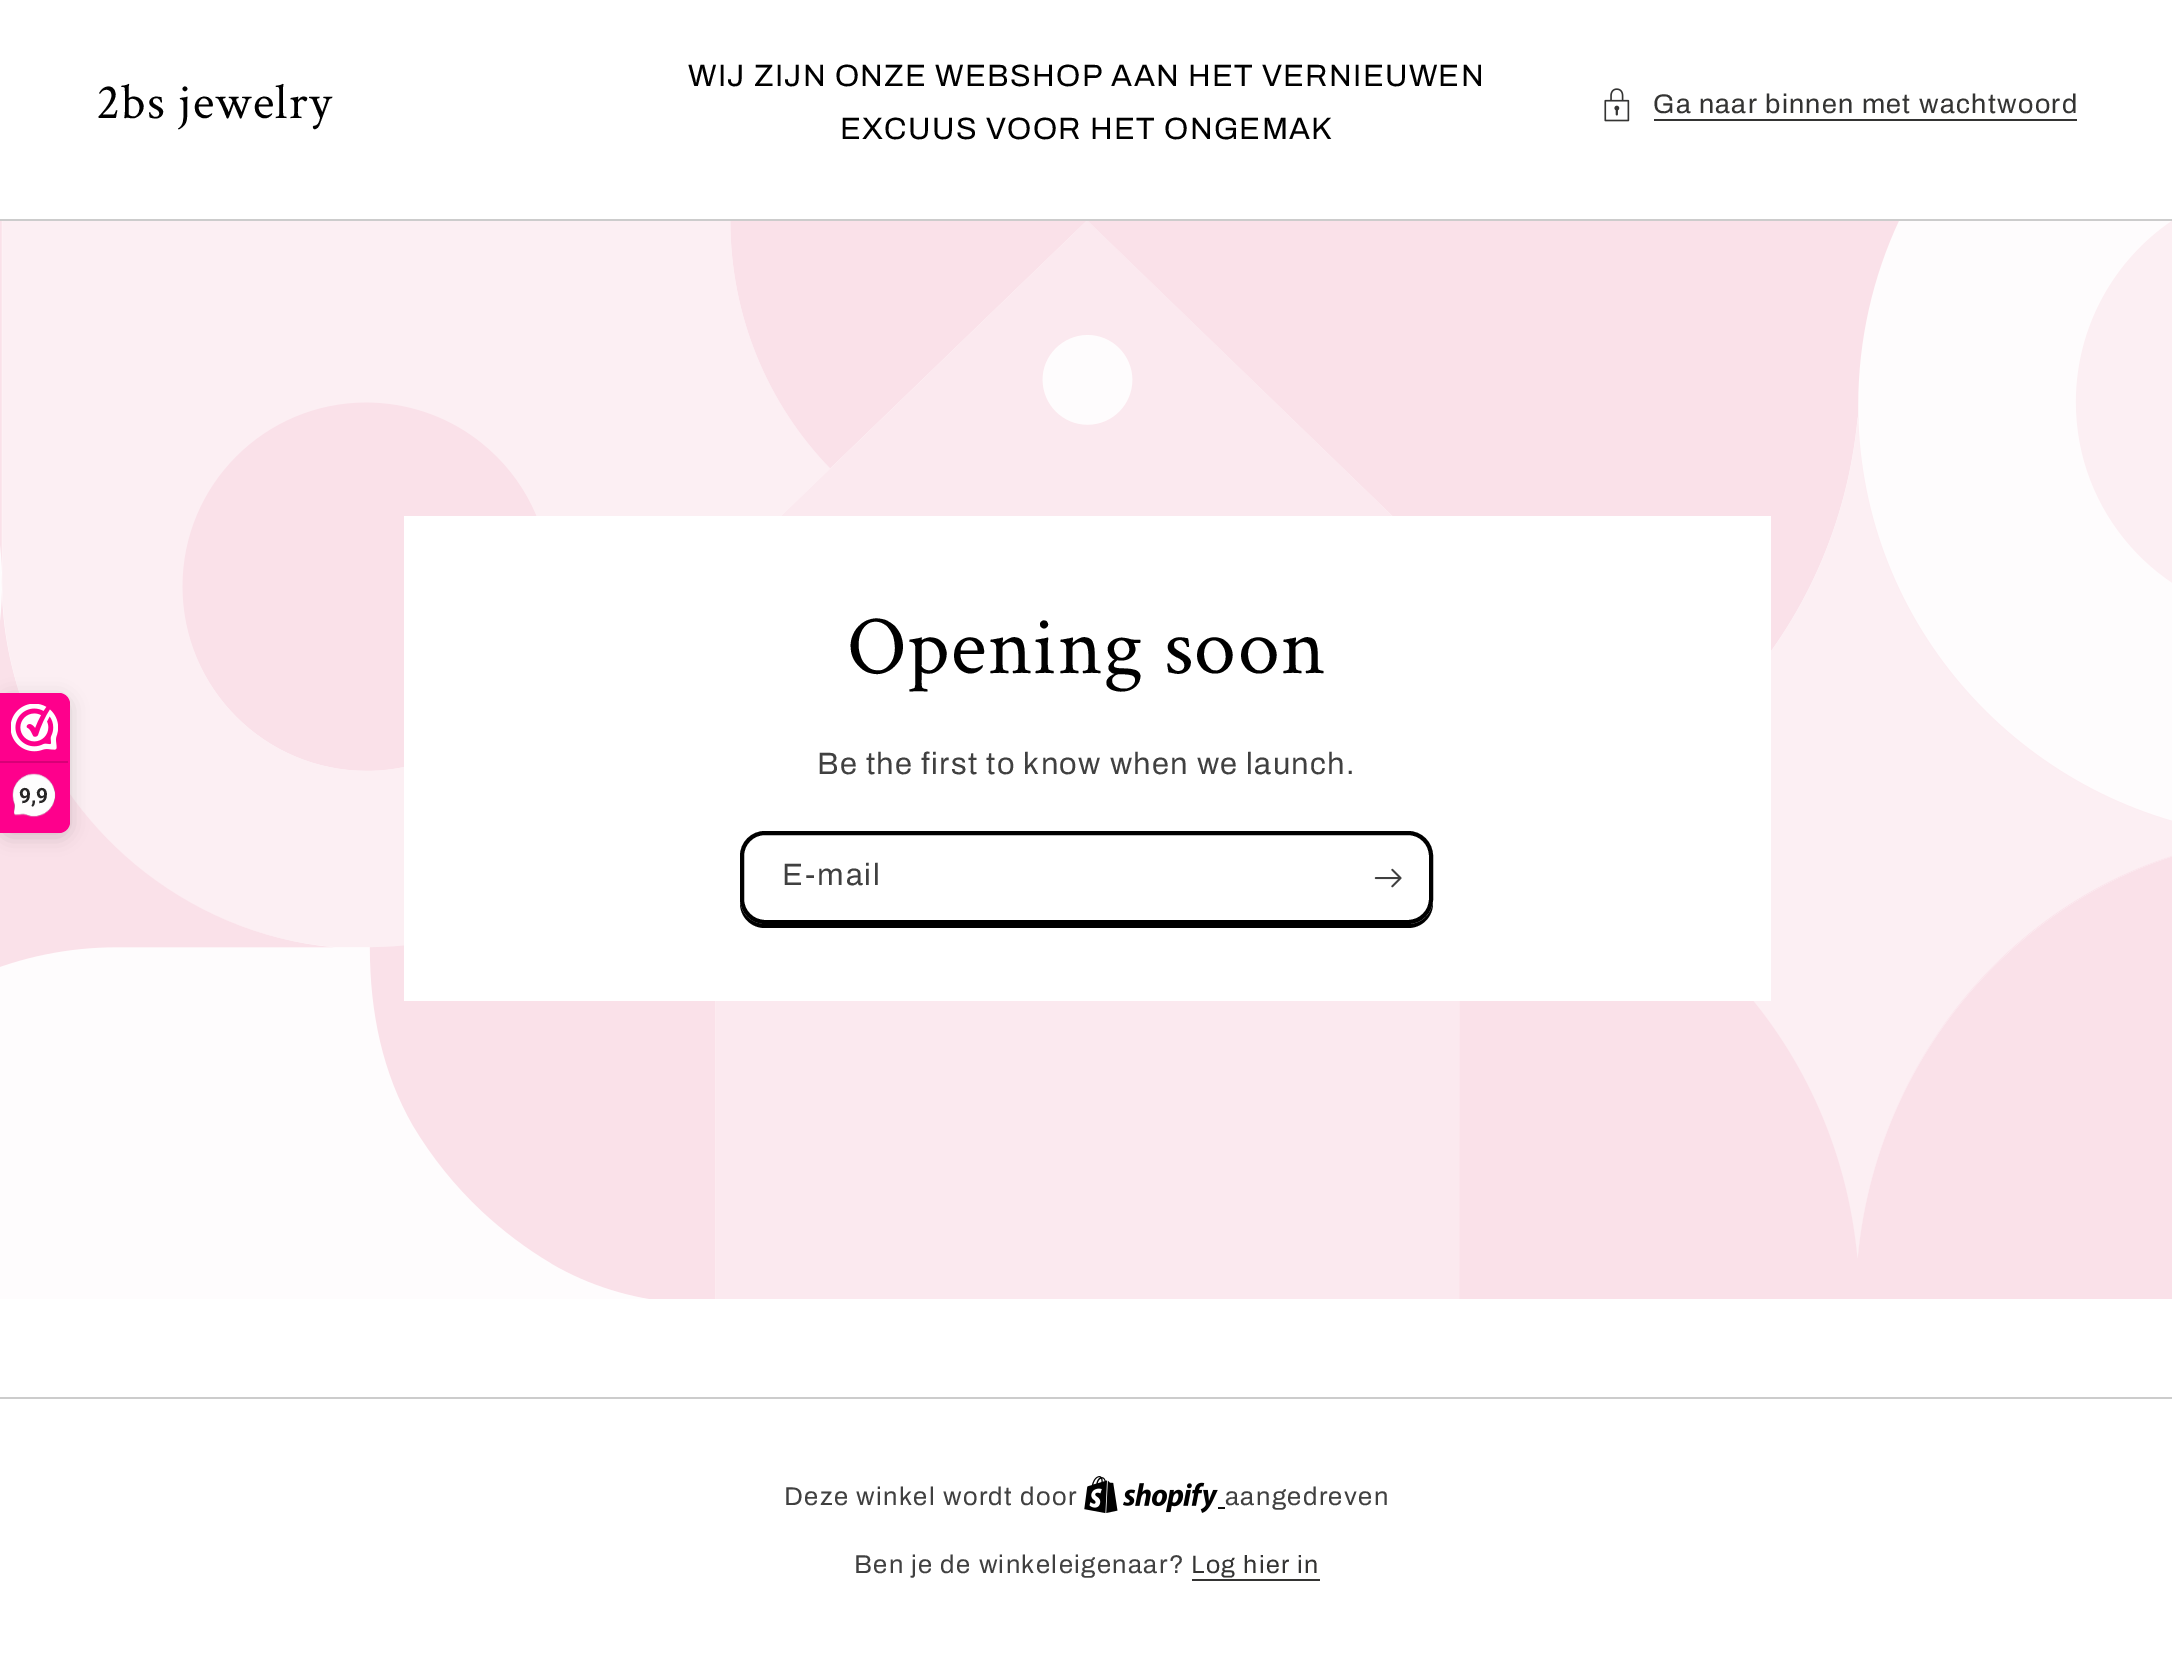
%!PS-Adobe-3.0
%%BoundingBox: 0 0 2172 1663
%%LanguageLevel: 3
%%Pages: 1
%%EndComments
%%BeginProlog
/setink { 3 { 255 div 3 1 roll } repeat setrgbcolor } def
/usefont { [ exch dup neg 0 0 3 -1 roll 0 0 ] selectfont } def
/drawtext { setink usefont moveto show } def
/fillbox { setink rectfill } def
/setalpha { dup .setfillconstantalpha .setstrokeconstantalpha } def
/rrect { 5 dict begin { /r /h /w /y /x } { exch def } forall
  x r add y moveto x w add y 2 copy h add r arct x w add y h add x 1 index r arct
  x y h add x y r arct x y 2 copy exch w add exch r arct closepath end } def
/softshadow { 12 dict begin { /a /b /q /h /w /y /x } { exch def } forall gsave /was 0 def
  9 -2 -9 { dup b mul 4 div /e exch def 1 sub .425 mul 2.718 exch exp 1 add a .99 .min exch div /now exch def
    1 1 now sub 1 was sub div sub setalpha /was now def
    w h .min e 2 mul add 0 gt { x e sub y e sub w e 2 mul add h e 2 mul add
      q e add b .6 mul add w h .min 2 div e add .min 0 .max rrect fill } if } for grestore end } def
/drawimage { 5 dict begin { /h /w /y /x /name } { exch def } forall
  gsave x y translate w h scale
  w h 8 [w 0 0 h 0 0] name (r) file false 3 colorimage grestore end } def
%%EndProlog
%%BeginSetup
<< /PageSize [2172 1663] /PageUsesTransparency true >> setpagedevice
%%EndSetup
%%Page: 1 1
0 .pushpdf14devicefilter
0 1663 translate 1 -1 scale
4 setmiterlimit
0 0 2172 1663 255 255 255 fillbox
/CrimsonText-Regular 50.5 usefont
0 0 0 setink
96 118 moveto 1.25 0 (2bs jewelry) ashow
/Archivo-Regular 30.8 usefont
688 86 moveto 1.35 0 (WIJ ZIJN ONZE WEBSHOP AAN HET VERNIEUWEN) ashow
840 139 moveto 1.35 0 (EXCUUS VOOR HET ONGEMAK) ashow
(assets/img1.rgb) 1604 88 26 34 drawimage
/Archivo-Regular 27 usefont
52 52 51 setink
1653 113 moveto 1.35 0 (Ga naar binnen met wachtwoord) ashow
1654 119 423 2 52 52 51 fillbox
0 219 2172 2 204 204 204 fillbox
(assets/img4.rgb) 0 221 2172 1078 drawimage
0 0 0 setink
0 697 70 140 11 9 0.15 softshadow
254 0 140 setink
0 693 moveto 59 693 lineto 65 693 70 698 70 704 curveto 70 822 lineto 70 828 65 833 59 833 curveto 0 833 lineto closepath fill
(assets/img2.rgb) 11 704 47 48 drawimage
0 761 68 2 216 0 119 fillbox
(assets/img3.rgb) 12 773 44 45 drawimage
(9,9) 19 803 /Roboto-Bold 21 39 38 38 drawtext
404 516 1367 485 255 255 255 fillbox
/CrimsonText-Regular 84 usefont
0 0 0 setink
847 673 moveto 1.25 0 (Opening soon) ashow
/Archivo-Regular 30.8 usefont
64 64 64 setink
817 774 moveto 1.35 0 (Be the first to know when we launch.) ashow
0 0 0 setink
740 856 moveto 740 903 lineto 740 917 751 928 765 928 curveto 1408 928 lineto 1422 928 1433 917 1433 903 curveto 1431 915 1421 924 1409 924 curveto 765 924 lineto 751 924 740 913 740 900 curveto closepath fill
4 setlinewidth
742 833 689 89 23 rrect stroke
64 64 64 setink
782 885 moveto 2 0 (E‑mail) ashow
(assets/img5.rgb) 1374 868 28 20 drawimage
0 1397 2172 2 204 204 204 fillbox
/Archivo-Regular 25.7 usefont
64 64 64 setink
784 1505 moveto 1.35 0 (Deze winkel wordt door) ashow
(assets/img6.rgb) 1084 1476 134 38 drawimage
1218 1507 7 2 16 16 15 fillbox
64 64 64 setink
1225 1505 moveto 1.35 0 (aangedreven) ashow
854 1573 moveto 1.35 0 (Ben je de winkeleigenaar?) ashow
/Archivo-Regular 25 usefont
52 52 51 setink
1191 1573 moveto 1.35 0 (Log hier in) ashow
1192 1579 128 2 52 52 51 fillbox
.poppdf14devicefilter showpage
%%EOF
